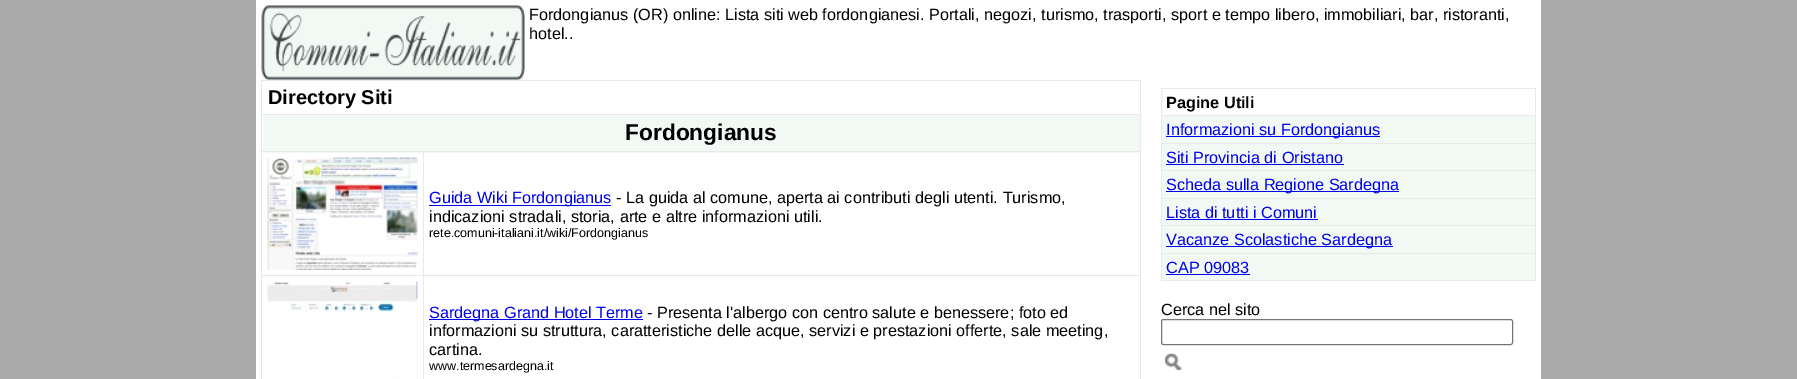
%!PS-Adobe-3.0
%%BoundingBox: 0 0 1797 379
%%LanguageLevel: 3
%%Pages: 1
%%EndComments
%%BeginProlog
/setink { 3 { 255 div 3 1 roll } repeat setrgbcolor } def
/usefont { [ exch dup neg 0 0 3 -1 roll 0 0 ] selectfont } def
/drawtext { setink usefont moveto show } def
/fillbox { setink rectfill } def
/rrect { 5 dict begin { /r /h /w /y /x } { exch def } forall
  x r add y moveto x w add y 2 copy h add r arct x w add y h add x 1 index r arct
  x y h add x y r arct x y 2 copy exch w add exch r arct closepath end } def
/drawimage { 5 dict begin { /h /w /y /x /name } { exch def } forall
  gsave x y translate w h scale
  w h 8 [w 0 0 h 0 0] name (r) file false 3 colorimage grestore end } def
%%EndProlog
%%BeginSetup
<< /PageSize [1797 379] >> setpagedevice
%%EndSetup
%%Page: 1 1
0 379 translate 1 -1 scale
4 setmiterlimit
0 0 1797 379 170 170 170 fillbox
256 0 1285 379 255 255 255 fillbox
(assets/img1.rgb) 261 5 264 75 drawimage
(Fordongianus \(OR\) online: Lista siti web fordongianesi. Portali, negozi, turismo, trasporti, sport e tempo libero, immobiliari, bar, ristoranti,) 529 20 /LiberationSans-Regular 16.25 0 0 0 drawtext
(hotel..) 529 39 /LiberationSans-Regular 16.25 0 0 0 drawtext
261 80 880 1 233 233 233 fillbox
1140 80 1 299 233 233 233 fillbox
261 80 1 299 233 233 233 fillbox
(Directory Siti) 268 104 /LiberationSans-Bold 20 0 0 0 drawtext
263 115 877 38 242 248 244 fillbox
261 114 880 1 233 233 233 fillbox
(Fordongianus) 625 140 /LiberationSans-Bold 22.75 0 0 0 drawtext
423 151 718 1 233 233 233 fillbox
423 275 718 1 233 233 233 fillbox
423 275 1 104 233 233 233 fillbox
261 275 163 1 233 233 233 fillbox
423 151 1 125 233 233 233 fillbox
261 151 163 1 233 233 233 fillbox
(assets/img2.rgb) 267 157 151 113 drawimage
429 205 182 1 0 0 238 fillbox
(Guida Wiki Fordongianus) 429 203 /LiberationSans-Regular 16.25 0 0 238 drawtext
(- La guida al comune, aperta ai contributi degli utenti. Turismo,) 616 203 /LiberationSans-Regular 16.25 0 0 0 drawtext
(indicazioni stradali, storia, arte e altre informazioni utili.) 429 222 /LiberationSans-Regular 16.25 0 0 0 drawtext
(rete.comuni-italiani.it/wiki/Fordongianus) 429 237 /LiberationSans-Regular 12.5 0 0 0 drawtext
(assets/img3.rgb) 267 281 151 98 drawimage
429 319 214 1 0 0 238 fillbox
(Sardegna Grand Hotel Terme) 429 318 /LiberationSans-Regular 16.25 0 0 238 drawtext
(- Presenta l'albergo con centro salute e benessere; foto ed) 647 318 /LiberationSans-Regular 16.25 0 0 0 drawtext
(informazioni su struttura, caratteristiche delle acque, servizi e prestazioni offerte, sale meeting,) 429 336 /LiberationSans-Regular 16.25 0 0 0 drawtext
(cartina.) 429 355 /LiberationSans-Regular 16.25 0 0 0 drawtext
(www.termesardegna.it) 429 370 /LiberationSans-Regular 12.5 0 0 0 drawtext
1162 89 373 191 242 248 244 fillbox
1161 88 375 1 233 233 233 fillbox
1535 88 1 193 233 233 233 fillbox
1161 280 375 1 233 233 233 fillbox
1161 88 1 193 233 233 233 fillbox
1163 89 372 26 255 255 255 fillbox
(Pagine Utili) 1166 108 /LiberationSans-Bold 16.25 0 0 0 drawtext
1161 115 375 1 233 233 233 fillbox
1166 136 214 1 0 0 238 fillbox
(Informazioni su Fordongianus) 1166 135 /LiberationSans-Regular 16.25 0 0 238 drawtext
1161 143 375 1 233 233 233 fillbox
(Siti Provincia di Oristano) 1166 163 /LiberationSans-Regular 16.25 0 0 238 drawtext
1166 164 178 1 0 0 238 fillbox
1161 170 375 1 233 233 233 fillbox
1166 191 233 1 0 0 238 fillbox
(Scheda sulla Regione Sardegna) 1166 190 /LiberationSans-Regular 16.25 0 0 238 drawtext
1161 198 375 1 233 233 233 fillbox
(Lista di tutti i Comuni) 1166 218 /LiberationSans-Regular 16.25 0 0 238 drawtext
1166 219 152 1 0 0 238 fillbox
1161 225 375 1 233 233 233 fillbox
1166 246 227 1 0 0 238 fillbox
(Vacanze Scolastiche Sardegna) 1166 245 /LiberationSans-Regular 16.25 0 0 238 drawtext
1161 253 375 1 233 233 233 fillbox
(CAP 09083) 1166 273 /LiberationSans-Regular 16.25 0 0 238 drawtext
1166 274 84 1 0 0 238 fillbox
(Cerca nel sito) 1161 315 /LiberationSans-Regular 16.25 0 0 0 drawtext
118 118 118 setink
1161.5 319.5 351 25 2 rrect stroke
(assets/img4.rgb) 1164 353 18 17 drawimage
showpage
%%EOF
